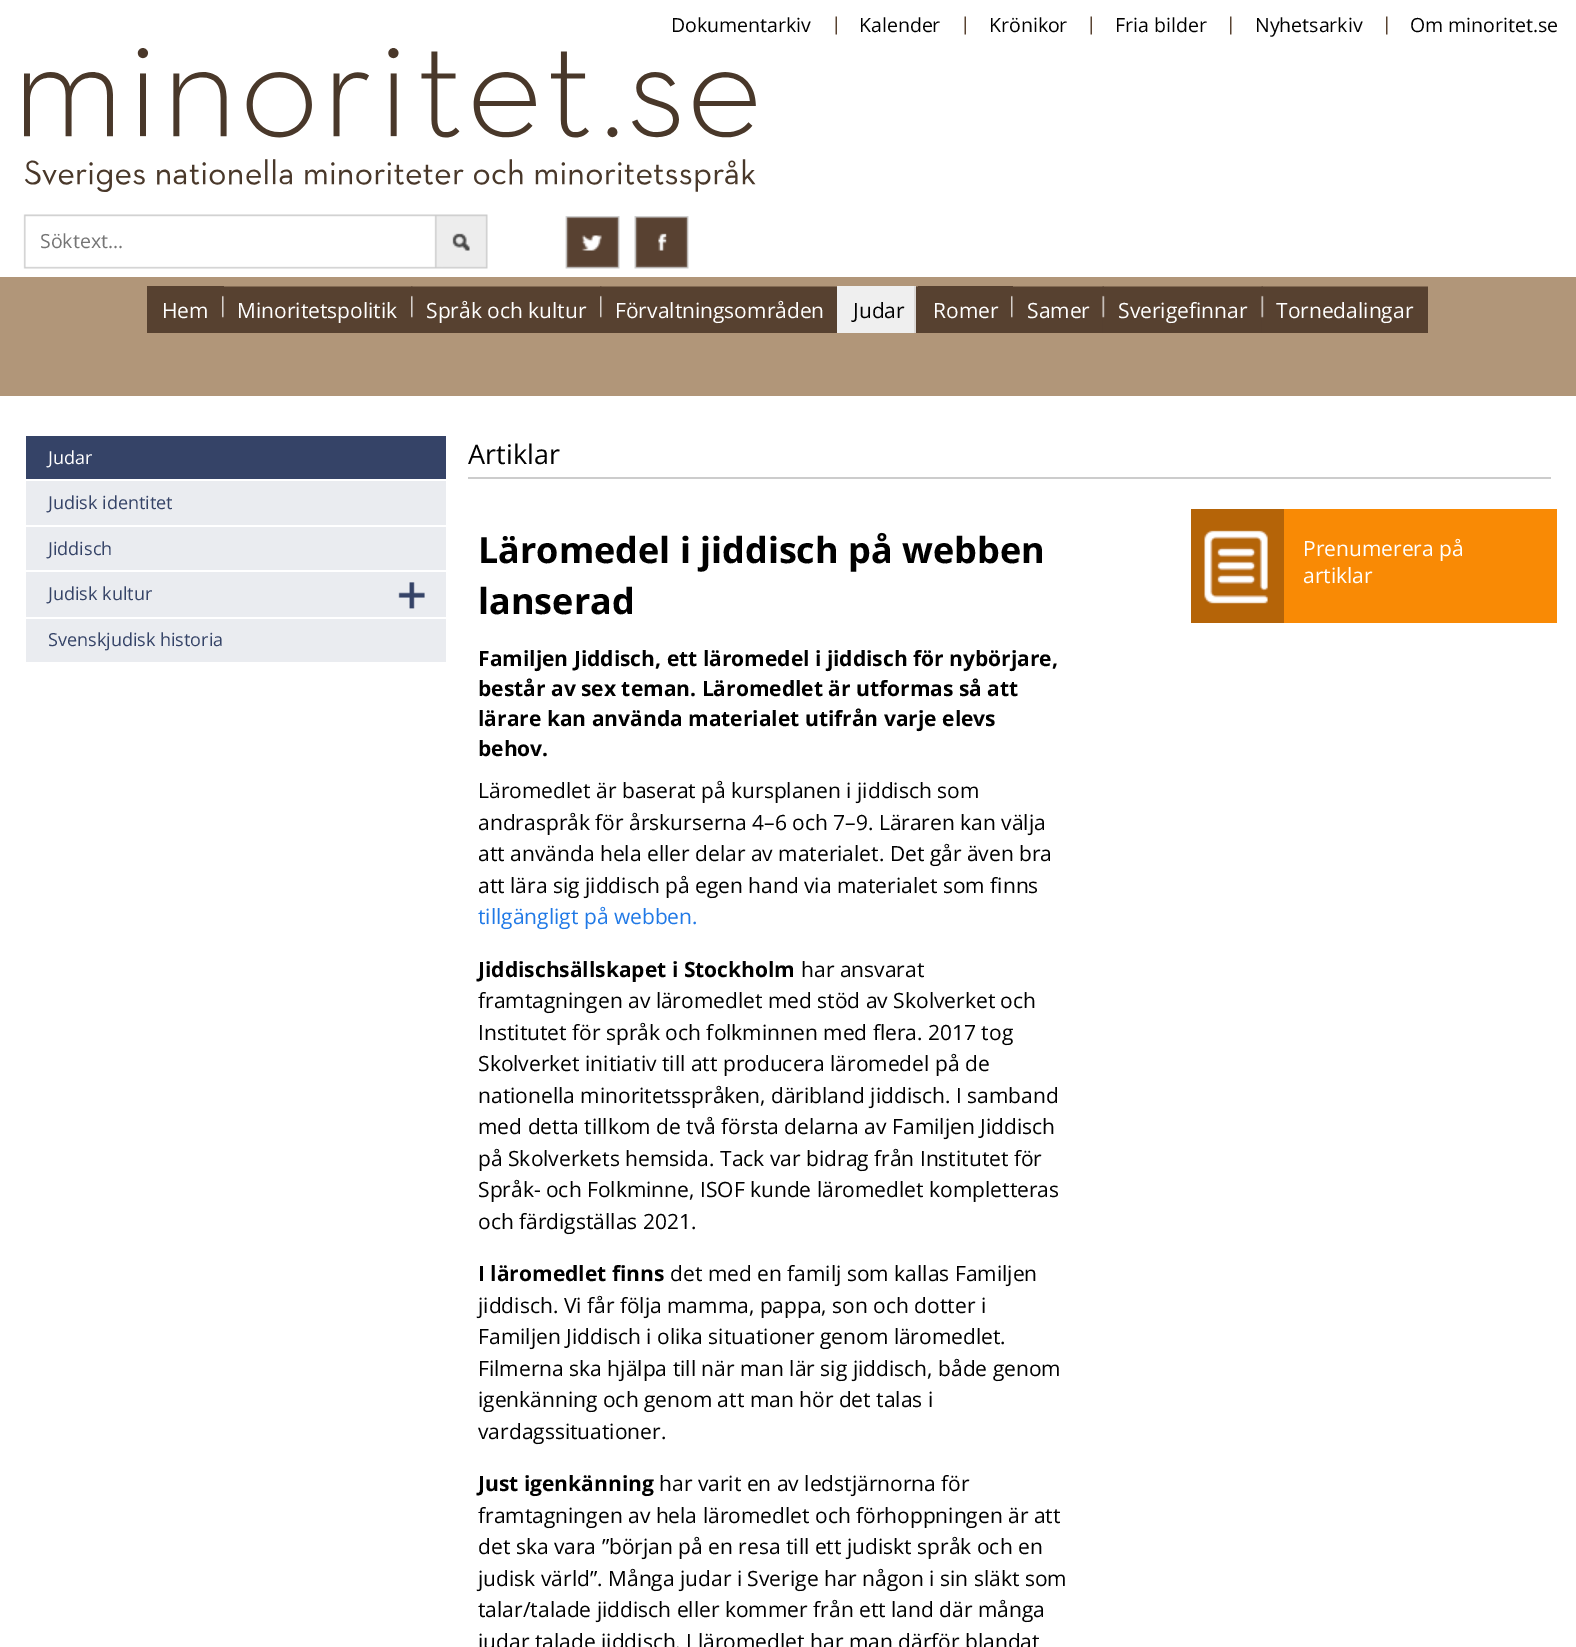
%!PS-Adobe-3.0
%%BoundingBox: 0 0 1576 1647
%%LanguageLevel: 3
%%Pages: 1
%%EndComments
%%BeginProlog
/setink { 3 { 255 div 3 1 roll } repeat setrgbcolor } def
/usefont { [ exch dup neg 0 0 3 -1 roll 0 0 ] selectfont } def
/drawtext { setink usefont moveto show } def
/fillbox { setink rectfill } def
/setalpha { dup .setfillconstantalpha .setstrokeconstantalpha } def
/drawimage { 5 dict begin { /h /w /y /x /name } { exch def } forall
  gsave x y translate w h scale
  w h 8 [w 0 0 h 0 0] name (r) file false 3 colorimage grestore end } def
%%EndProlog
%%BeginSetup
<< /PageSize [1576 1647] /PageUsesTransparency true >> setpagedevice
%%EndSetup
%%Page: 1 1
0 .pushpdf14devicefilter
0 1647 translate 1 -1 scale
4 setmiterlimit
0 0 1576 1647 255 255 255 fillbox
0 277 1576 119 177 150 121 fillbox
(Dokumentarkiv) 671 32 /OpenSans-Regular 19.5 0 0 0 drawtext
(assets/img1.rgb) 835 16 2 19 drawimage
(Kalender) 859 32 /OpenSans-Regular 19.5 0 0 0 drawtext
(assets/img1.rgb) 964 16 2 19 drawimage
(Krönikor) 989 32 /OpenSans-Regular 19.5 0 0 0 drawtext
(assets/img1.rgb) 1090 16 2 19 drawimage
(Fria bilder) 1115 32 /OpenSans-Regular 19.5 0 0 0 drawtext
(assets/img2.rgb) 1230 16 2 19 drawimage
(Nyhetsarkiv) 1255 32 /OpenSans-Regular 19.5 0 0 0 drawtext
(assets/img2.rgb) 1386 16 2 19 drawimage
(Om minoritet.se) 1410 32 /OpenSans-Regular 19.5 0 0 0 drawtext
(assets/img3.rgb) 24 48 732 144 drawimage
(assets/img4.rgb) 23 214 465 55 drawimage
(Söktext...) 40 248 /OpenSans-Regular 19.5 117 117 117 drawtext
(assets/img5.rgb) 565 216 124 53 drawimage
147 286 77 47 87 65 48 fillbox
(Hem) 162 318 /OpenSans-Regular 21 255 255 255 drawtext
(assets/img6.rgb) 222 286 191 47 drawimage
(Minoritetspolitik) 237 318 /OpenSans-Regular 21 255 255 255 drawtext
(assets/img7.rgb) 411 286 191 47 drawimage
(Språk och kultur) 426 318 /OpenSans-Regular 21 255 255 255 drawtext
(assets/img8.rgb) 600 286 237 47 drawimage
(Förvaltningsområden) 615 318 /OpenSans-Regular 21 255 255 255 drawtext
(assets/img9.rgb) 914 286 4 47 drawimage
0.87 setalpha
914 286 2 47 239 239 239 fillbox
1 setalpha
837 286 77 47 239 239 239 fillbox
(Judar) 853 318 /OpenSans-Regular 21 0 0 0 drawtext
918 286 95 47 87 65 48 fillbox
(Romer) 933 318 /OpenSans-Regular 21 255 255 255 drawtext
(assets/img10.rgb) 1011 286 93 47 drawimage
(Samer) 1027 318 /OpenSans-Regular 21 255 255 255 drawtext
(assets/img11.rgb) 1102 286 161 47 drawimage
(Sverigefinnar) 1118 318 /OpenSans-Regular 21 255 255 255 drawtext
(assets/img12.rgb) 1261 286 167 47 drawimage
(Tornedalingar) 1276 318 /OpenSans-Regular 21 255 255 255 drawtext
26 436 420 43 53 67 103 fillbox
(Judar) 48 464 /OpenSans-Regular 18 255 255 255 drawtext
26 481 420 44 234 236 240 fillbox
(Judisk identitet) 48 509 /OpenSans-Regular 18 53 67 103 drawtext
26 527 420 43 234 236 240 fillbox
(Jiddisch) 48 555 /OpenSans-Regular 18 53 67 103 drawtext
26 572 420 45 234 236 240 fillbox
(Judisk kultur) 48 600 /OpenSans-Regular 18 53 67 103 drawtext
(assets/img13.rgb) 398 582 27 27 drawimage
26 619 420 43 234 236 240 fillbox
(Svenskjudisk historia) 48 646 /OpenSans-Regular 18 53 67 103 drawtext
468 477 1083 2 204 204 204 fillbox
(Artiklar) 468 464 /OpenSans-Regular 27 0 0 0 drawtext
(Läromedel i jiddisch på webben) 478 563 /OpenSans-Bold 36 0 0 0 drawtext
(lanserad) 478 614 /OpenSans-Bold 36 0 0 0 drawtext
(Familjen Jiddisch, ett läromedel i jiddisch för nybörjare,) 478 666 /OpenSans-Bold 21 0 0 0 drawtext
(består av sex teman. Läromedlet är utformas så att) 478 696 /OpenSans-Bold 21 0 0 0 drawtext
(lärare kan använda materialet utifrån varje elevs) 478 726 /OpenSans-Bold 21 0 0 0 drawtext
(behov.) 478 756 /OpenSans-Bold 21 0 0 0 drawtext
(Läromedlet är baserat på kursplanen i jiddisch som) 478 798 /OpenSans-Regular 21 0 0 0 drawtext
(andraspråk för årskurserna 4–6 och 7–9. Läraren kan välja) 478 830 /OpenSans-Regular 21 0 0 0 drawtext
(att använda hela eller delar av materialet. Det går även bra) 478 861 /OpenSans-Regular 21 0 0 0 drawtext
(att lära sig jiddisch på egen hand via materialet som finns) 478 893 /OpenSans-Regular 21 0 0 0 drawtext
(tillgängligt på webben.) 478 924 /OpenSans-Regular 21 32 121 230 drawtext
(Jiddischsällskapet i Stockholm) 478 977 /OpenSans-Bold 21 0 0 0 drawtext
(har ansvarat) 801 977 /OpenSans-Regular 21 0 0 0 drawtext
(framtagningen av läromedlet med stöd av Skolverket och) 478 1008 /OpenSans-Regular 21 0 0 0 drawtext
(Institutet för språk och folkminnen med flera. 2017 tog) 478 1040 /OpenSans-Regular 21 0 0 0 drawtext
(Skolverket initiativ till att producera läromedel på de) 478 1071 /OpenSans-Regular 21 0 0 0 drawtext
(nationella minoritetsspråken, däribland jiddisch. I samband) 478 1103 /OpenSans-Regular 21 0 0 0 drawtext
(med detta tillkom de två första delarna av Familjen Jiddisch) 478 1134 /OpenSans-Regular 21 0 0 0 drawtext
(på Skolverkets hemsida. Tack var bidrag från Institutet för) 478 1166 /OpenSans-Regular 21 0 0 0 drawtext
(Språk- och Folkminne, ISOF kunde läromedlet kompletteras) 478 1197 /OpenSans-Regular 21 0 0 0 drawtext
(och färdigställas 2021.) 478 1229 /OpenSans-Regular 21 0 0 0 drawtext
(I läromedlet finns) 478 1281 /OpenSans-Bold 21 0 0 0 drawtext
(det med en familj som kallas Familjen) 670 1281 /OpenSans-Regular 21 0 0 0 drawtext
(jiddisch. Vi får följa mamma, pappa, son och dotter i) 478 1313 /OpenSans-Regular 21 0 0 0 drawtext
(Familjen Jiddisch i olika situationer genom läromedlet.) 478 1344 /OpenSans-Regular 21 0 0 0 drawtext
(Filmerna ska hjälpa till när man lär sig jiddisch, både genom) 478 1376 /OpenSans-Regular 21 0 0 0 drawtext
(igenkänning och genom att man hör det talas i) 478 1407 /OpenSans-Regular 21 0 0 0 drawtext
(vardagssituationer.) 478 1439 /OpenSans-Regular 21 0 0 0 drawtext
(Just igenkänning) 478 1491 /OpenSans-Bold 21 0 0 0 drawtext
(har varit en av ledstjärnorna för) 659 1491 /OpenSans-Regular 21 0 0 0 drawtext
(framtagningen av hela läromedlet och förhoppningen är att) 478 1523 /OpenSans-Regular 21 0 0 0 drawtext
(det ska vara ”början på en resa till ett judiskt språk och en) 478 1554 /OpenSans-Regular 21 0 0 0 drawtext
(judisk värld”. Många judar i Sverige har någon i sin släkt som) 478 1586 /OpenSans-Regular 21 0 0 0 drawtext
(talar/talade jiddisch eller kommer från ett land där många) 478 1617 /OpenSans-Regular 21 0 0 0 drawtext
(judar talade jiddisch. I läromedlet har man därför blandat) 478 1649 /OpenSans-Regular 21 0 0 0 drawtext
1284 509 273 114 249 138 5 fillbox
1191 509 93 114 181 100 8 fillbox
(assets/img14.rgb) 1204 530 64 74 drawimage
(Prenumerera på) 1303 556 /OpenSans-Regular 21 255 255 255 drawtext
(artiklar) 1303 583 /OpenSans-Regular 21 255 255 255 drawtext
.poppdf14devicefilter showpage
%%EOF
